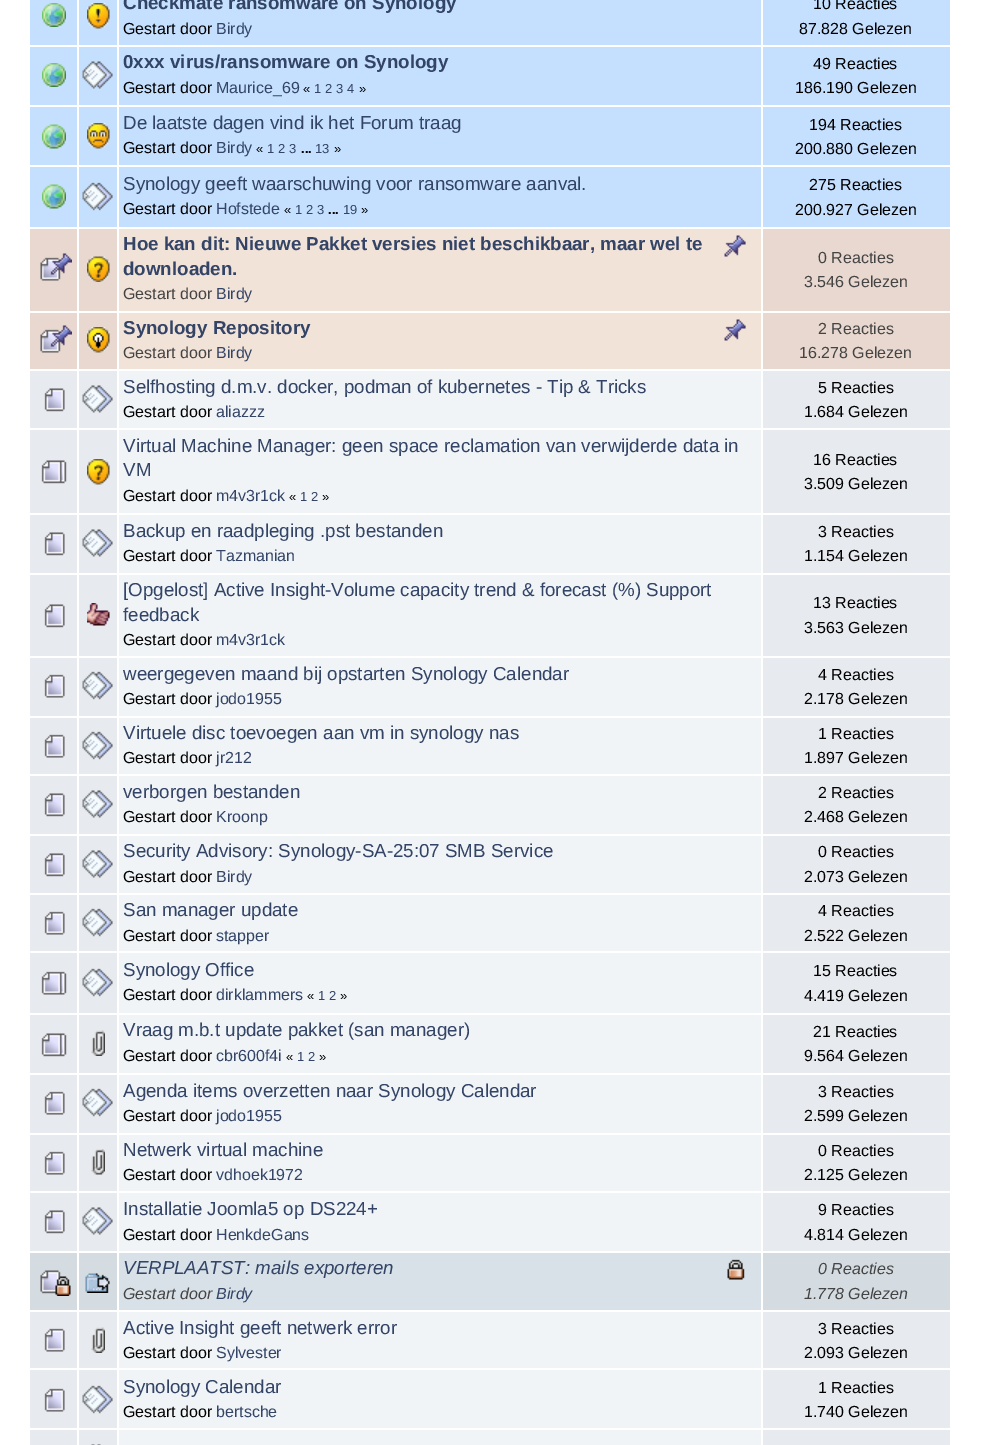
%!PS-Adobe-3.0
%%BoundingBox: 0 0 981 1445
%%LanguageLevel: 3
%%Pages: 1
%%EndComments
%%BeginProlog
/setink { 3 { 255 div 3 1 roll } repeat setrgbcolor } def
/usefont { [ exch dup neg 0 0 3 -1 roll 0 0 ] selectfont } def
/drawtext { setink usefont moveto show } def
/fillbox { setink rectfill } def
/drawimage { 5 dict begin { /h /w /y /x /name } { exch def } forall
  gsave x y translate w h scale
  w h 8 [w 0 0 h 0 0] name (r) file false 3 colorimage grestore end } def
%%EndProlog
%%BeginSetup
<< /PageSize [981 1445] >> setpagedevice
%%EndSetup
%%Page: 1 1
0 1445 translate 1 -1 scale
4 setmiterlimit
0 0 981 1445 255 255 255 fillbox
30 0 47 45 197 224 255 fillbox
(assets/img1.rgb) 42 3 24 24 drawimage
79 0 38 45 197 224 255 fillbox
(assets/img2.rgb) 87 3 23 26 drawimage
119 0 642 45 197 224 255 fillbox
(Checkmate ransomware on Synology) 123 9 /LiberationSans-Bold 18.75 51 68 102 drawtext
(Gestart door) 123 34 /LiberationSans-Regular 16 0 0 0 drawtext
(Birdy) 216 34 /LiberationSans-Regular 16 51 68 102 drawtext
763 0 187 45 197 224 255 fillbox
(10 Reacties) 813 9 /LiberationSans-Regular 16 0 0 0 drawtext
(87.828 Gelezen) 799 34 /LiberationSans-Regular 16 0 0 0 drawtext
30 47 47 58 197 224 255 fillbox
(assets/img1.rgb) 42 63 24 24 drawimage
79 47 38 58 197 224 255 fillbox
(assets/img3.rgb) 82 61 31 28 drawimage
119 47 642 58 197 224 255 fillbox
(0xxx virus/ransomware on Synology) 123 68 /LiberationSans-Bold 18.75 51 68 102 drawtext
(Gestart door) 123 93 /LiberationSans-Regular 16 0 0 0 drawtext
(Maurice_69) 216 93 /LiberationSans-Regular 16 51 68 102 drawtext
(«) 303 93 /LiberationSans-Regular 13 0 0 0 drawtext
(1 2 3 4) 314 93 /LiberationSans-Regular 13 51 68 102 drawtext
(») 359 93 /LiberationSans-Regular 13 0 0 0 drawtext
763 47 187 58 197 224 255 fillbox
(49 Reacties) 813 69 /LiberationSans-Regular 16 0 0 0 drawtext
(186.190 Gelezen) 795 93 /LiberationSans-Regular 16 0 0 0 drawtext
30 107 47 58 197 224 255 fillbox
(assets/img4.rgb) 42 124 24 25 drawimage
79 107 38 58 197 224 255 fillbox
(assets/img5.rgb) 87 123 23 26 drawimage
119 107 642 58 197 224 255 fillbox
(De laatste dagen vind ik het Forum traag) 123 129 /LiberationSans-Regular 18.75 51 68 102 drawtext
(Gestart door) 123 153 /LiberationSans-Regular 16 0 0 0 drawtext
(Birdy) 216 153 /LiberationSans-Regular 16 51 68 102 drawtext
(«) 256 153 /LiberationSans-Regular 13 0 0 0 drawtext
(1 2 3) 267 153 /LiberationSans-Regular 13 51 68 102 drawtext
(...) 301 153 /LiberationSans-Bold 13 0 0 0 drawtext
(13) 315 153 /LiberationSans-Regular 13 51 68 102 drawtext
(») 334 153 /LiberationSans-Regular 13 0 0 0 drawtext
763 107 187 58 197 224 255 fillbox
(194 Reacties) 809 130 /LiberationSans-Regular 16 0 0 0 drawtext
(200.880 Gelezen) 795 154 /LiberationSans-Regular 16 0 0 0 drawtext
30 167 47 60 197 224 255 fillbox
(assets/img4.rgb) 42 184 24 25 drawimage
79 167 38 60 197 224 255 fillbox
(assets/img6.rgb) 82 182 31 29 drawimage
119 167 642 60 197 224 255 fillbox
(Synology geeft waarschuwing voor ransomware aanval.) 123 190 /LiberationSans-Regular 18.75 51 68 102 drawtext
(Gestart door) 123 214 /LiberationSans-Regular 16 0 0 0 drawtext
(Hofstede) 216 214 /LiberationSans-Regular 16 51 68 102 drawtext
(«) 284 214 /LiberationSans-Regular 13 0 0 0 drawtext
(1 2 3) 295 214 /LiberationSans-Regular 13 51 68 102 drawtext
(...) 328 214 /LiberationSans-Bold 13 0 0 0 drawtext
(19) 343 214 /LiberationSans-Regular 13 51 68 102 drawtext
(») 361 214 /LiberationSans-Regular 13 0 0 0 drawtext
763 167 187 60 197 224 255 fillbox
(275 Reacties) 809 190 /LiberationSans-Regular 16 0 0 0 drawtext
(200.927 Gelezen) 795 215 /LiberationSans-Regular 16 0 0 0 drawtext
30 229 47 82 232 216 207 fillbox
(assets/img7.rgb) 40 253 32 28 drawimage
79 229 38 82 232 216 207 fillbox
(assets/img8.rgb) 87 256 23 26 drawimage
119 229 642 82 242 227 217 fillbox
(assets/img9.rgb) 724 235 22 22 drawimage
(Hoe kan dit: Nieuwe Pakket versies niet beschikbaar, maar wel te) 123 250 /LiberationSans-Bold 18.75 51 68 102 drawtext
(downloaden.) 123 275 /LiberationSans-Bold 18.75 51 68 102 drawtext
(Gestart door) 123 299 /LiberationSans-Regular 16 68 68 68 drawtext
(Birdy) 216 299 /LiberationSans-Regular 16 51 68 102 drawtext
763 229 187 82 232 216 207 fillbox
(0 Reacties) 818 263 /LiberationSans-Regular 16 68 68 68 drawtext
(3.546 Gelezen) 804 287 /LiberationSans-Regular 16 68 68 68 drawtext
30 313 47 56 232 216 207 fillbox
(assets/img7.rgb) 40 325 32 28 drawimage
79 313 38 56 232 216 207 fillbox
(assets/img10.rgb) 87 327 23 26 drawimage
119 313 642 56 242 227 217 fillbox
(assets/img9.rgb) 724 319 22 22 drawimage
(Synology Repository) 123 334 /LiberationSans-Bold 18.75 51 68 102 drawtext
(Gestart door) 123 358 /LiberationSans-Regular 16 68 68 68 drawtext
(Birdy) 216 358 /LiberationSans-Regular 16 51 68 102 drawtext
763 313 187 56 232 216 207 fillbox
(2 Reacties) 818 334 /LiberationSans-Regular 16 68 68 68 drawtext
(16.278 Gelezen) 799 358 /LiberationSans-Regular 16 68 68 68 drawtext
30 371 47 57 231 234 239 fillbox
(assets/img11.rgb) 44 388 21 24 drawimage
79 371 38 57 231 234 239 fillbox
(assets/img12.rgb) 82 385 31 28 drawimage
119 371 642 57 240 244 247 fillbox
(Selfhosting d.m.v. docker, podman of kubernetes - Tip & Tricks) 123 393 /LiberationSans-Regular 18.75 51 68 102 drawtext
(Gestart door) 123 417 /LiberationSans-Regular 16 0 0 0 drawtext
(aliazzz) 216 417 /LiberationSans-Regular 16 51 68 102 drawtext
763 371 187 57 231 234 239 fillbox
(5 Reacties) 818 393 /LiberationSans-Regular 16 0 0 0 drawtext
(1.684 Gelezen) 804 417 /LiberationSans-Regular 16 0 0 0 drawtext
30 430 47 83 231 234 239 fillbox
(assets/img13.rgb) 41 460 26 24 drawimage
79 430 38 83 231 234 239 fillbox
(assets/img14.rgb) 87 459 23 26 drawimage
119 430 642 83 240 244 247 fillbox
(Virtual Machine Manager: geen space reclamation van verwijderde data in) 123 452 /LiberationSans-Regular 18.75 51 68 102 drawtext
(VM) 123 476 /LiberationSans-Regular 18.75 51 68 102 drawtext
(Gestart door) 123 501 /LiberationSans-Regular 16 0 0 0 drawtext
(m4v3r1ck) 216 501 /LiberationSans-Regular 16 51 68 102 drawtext
(«) 289 501 /LiberationSans-Regular 13 0 0 0 drawtext
(1 2) 300 501 /LiberationSans-Regular 13 51 68 102 drawtext
(») 322 501 /LiberationSans-Regular 13 0 0 0 drawtext
763 430 187 83 231 234 239 fillbox
(16 Reacties) 813 465 /LiberationSans-Regular 16 0 0 0 drawtext
(3.509 Gelezen) 804 489 /LiberationSans-Regular 16 0 0 0 drawtext
30 515 47 58 231 234 239 fillbox
(assets/img11.rgb) 44 532 21 24 drawimage
79 515 38 58 231 234 239 fillbox
(assets/img12.rgb) 82 529 31 28 drawimage
119 515 642 58 240 244 247 fillbox
(Backup en raadpleging .pst bestanden) 123 537 /LiberationSans-Regular 18.75 51 68 102 drawtext
(Gestart door) 123 561 /LiberationSans-Regular 16 0 0 0 drawtext
(Tazmanian) 216 561 /LiberationSans-Regular 16 51 68 102 drawtext
763 515 187 58 231 234 239 fillbox
(3 Reacties) 818 537 /LiberationSans-Regular 16 0 0 0 drawtext
(1.154 Gelezen) 804 561 /LiberationSans-Regular 16 0 0 0 drawtext
30 575 47 81 231 234 239 fillbox
(assets/img11.rgb) 44 604 21 24 drawimage
79 575 38 81 231 234 239 fillbox
(assets/img15.rgb) 87 603 23 23 drawimage
119 575 642 81 240 244 247 fillbox
([Opgelost] Active Insight-Volume capacity trend & forecast \(%\) Support) 123 596 /LiberationSans-Regular 18.75 51 68 102 drawtext
(feedback) 123 621 /LiberationSans-Regular 18.75 51 68 102 drawtext
(Gestart door) 123 645 /LiberationSans-Regular 16 0 0 0 drawtext
(m4v3r1ck) 216 645 /LiberationSans-Regular 16 51 68 102 drawtext
763 575 187 81 231 234 239 fillbox
(13 Reacties) 813 608 /LiberationSans-Regular 16 0 0 0 drawtext
(3.563 Gelezen) 804 633 /LiberationSans-Regular 16 0 0 0 drawtext
30 658 47 58 231 234 239 fillbox
(assets/img16.rgb) 44 674 21 24 drawimage
79 658 38 58 231 234 239 fillbox
(assets/img17.rgb) 82 671 31 29 drawimage
119 658 642 58 240 244 247 fillbox
(weergegeven maand bij opstarten Synology Calendar) 123 680 /LiberationSans-Regular 18.75 51 68 102 drawtext
(Gestart door) 123 704 /LiberationSans-Regular 16 0 0 0 drawtext
(jodo1955) 216 704 /LiberationSans-Regular 16 51 68 102 drawtext
763 658 187 58 231 234 239 fillbox
(4 Reacties) 818 680 /LiberationSans-Regular 16 0 0 0 drawtext
(2.178 Gelezen) 804 704 /LiberationSans-Regular 16 0 0 0 drawtext
30 718 47 56 231 234 239 fillbox
(assets/img16.rgb) 44 734 21 24 drawimage
79 718 38 56 231 234 239 fillbox
(assets/img17.rgb) 82 731 31 29 drawimage
119 718 642 56 240 244 247 fillbox
(Virtuele disc toevoegen aan vm in synology nas) 123 739 /LiberationSans-Regular 18.75 51 68 102 drawtext
(Gestart door) 123 763 /LiberationSans-Regular 16 0 0 0 drawtext
(jr212) 216 763 /LiberationSans-Regular 16 51 68 102 drawtext
763 718 187 56 231 234 239 fillbox
(1 Reacties) 818 739 /LiberationSans-Regular 16 0 0 0 drawtext
(1.897 Gelezen) 804 763 /LiberationSans-Regular 16 0 0 0 drawtext
30 776 47 58 231 234 239 fillbox
(assets/img11.rgb) 44 793 21 24 drawimage
79 776 38 58 231 234 239 fillbox
(assets/img12.rgb) 82 790 31 28 drawimage
119 776 642 58 240 244 247 fillbox
(verborgen bestanden) 123 798 /LiberationSans-Regular 18.75 51 68 102 drawtext
(Gestart door) 123 822 /LiberationSans-Regular 16 0 0 0 drawtext
(Kroonp) 216 822 /LiberationSans-Regular 16 51 68 102 drawtext
763 776 187 58 231 234 239 fillbox
(2 Reacties) 818 798 /LiberationSans-Regular 16 0 0 0 drawtext
(2.468 Gelezen) 804 822 /LiberationSans-Regular 16 0 0 0 drawtext
30 836 47 57 231 234 239 fillbox
(assets/img11.rgb) 44 853 21 24 drawimage
79 836 38 57 231 234 239 fillbox
(assets/img12.rgb) 82 850 31 28 drawimage
119 836 642 57 240 244 247 fillbox
(Security Advisory: Synology-SA-25:07 SMB Service) 123 857 /LiberationSans-Regular 18.75 51 68 102 drawtext
(Gestart door) 123 882 /LiberationSans-Regular 16 0 0 0 drawtext
(Birdy) 216 882 /LiberationSans-Regular 16 51 68 102 drawtext
763 836 187 57 231 234 239 fillbox
(0 Reacties) 818 857 /LiberationSans-Regular 16 0 0 0 drawtext
(2.073 Gelezen) 804 882 /LiberationSans-Regular 16 0 0 0 drawtext
30 895 47 56 231 234 239 fillbox
(assets/img16.rgb) 44 911 21 24 drawimage
79 895 38 56 231 234 239 fillbox
(assets/img17.rgb) 82 908 31 29 drawimage
119 895 642 56 240 244 247 fillbox
(San manager update) 123 916 /LiberationSans-Regular 18.75 51 68 102 drawtext
(Gestart door) 123 941 /LiberationSans-Regular 16 0 0 0 drawtext
(stapper) 216 941 /LiberationSans-Regular 16 51 68 102 drawtext
763 895 187 56 231 234 239 fillbox
(4 Reacties) 818 916 /LiberationSans-Regular 16 0 0 0 drawtext
(2.522 Gelezen) 804 941 /LiberationSans-Regular 16 0 0 0 drawtext
30 953 47 60 231 234 239 fillbox
(assets/img18.rgb) 41 971 26 24 drawimage
79 953 38 60 231 234 239 fillbox
(assets/img17.rgb) 82 968 31 29 drawimage
119 953 642 60 240 244 247 fillbox
(Synology Office) 123 976 /LiberationSans-Regular 18.75 51 68 102 drawtext
(Gestart door) 123 1000 /LiberationSans-Regular 16 0 0 0 drawtext
(dirklammers) 216 1000 /LiberationSans-Regular 16 51 68 102 drawtext
(«) 307 1000 /LiberationSans-Regular 13 0 0 0 drawtext
(1 2) 318 1000 /LiberationSans-Regular 13 51 68 102 drawtext
(») 340 1000 /LiberationSans-Regular 13 0 0 0 drawtext
763 953 187 60 231 234 239 fillbox
(15 Reacties) 813 976 /LiberationSans-Regular 16 0 0 0 drawtext
(4.419 Gelezen) 804 1001 /LiberationSans-Regular 16 0 0 0 drawtext
30 1015 47 58 231 234 239 fillbox
(assets/img13.rgb) 41 1033 26 24 drawimage
79 1015 38 58 231 234 239 fillbox
(assets/img19.rgb) 91 1030 14 26 drawimage
119 1015 642 58 240 244 247 fillbox
(Vraag m.b.t update pakket \(san manager\)) 123 1036 /LiberationSans-Regular 18.75 51 68 102 drawtext
(Gestart door) 123 1061 /LiberationSans-Regular 16 0 0 0 drawtext
(cbr600f4i) 216 1061 /LiberationSans-Regular 16 51 68 102 drawtext
(«) 286 1061 /LiberationSans-Regular 13 0 0 0 drawtext
(1 2) 297 1061 /LiberationSans-Regular 13 51 68 102 drawtext
(») 319 1061 /LiberationSans-Regular 13 0 0 0 drawtext
763 1015 187 58 231 234 239 fillbox
(21 Reacties) 813 1037 /LiberationSans-Regular 16 0 0 0 drawtext
(9.564 Gelezen) 804 1061 /LiberationSans-Regular 16 0 0 0 drawtext
30 1075 47 58 231 234 239 fillbox
(assets/img16.rgb) 44 1091 21 24 drawimage
79 1075 38 58 231 234 239 fillbox
(assets/img17.rgb) 82 1088 31 29 drawimage
119 1075 642 58 240 244 247 fillbox
(Agenda items overzetten naar Synology Calendar) 123 1097 /LiberationSans-Regular 18.75 51 68 102 drawtext
(Gestart door) 123 1121 /LiberationSans-Regular 16 0 0 0 drawtext
(jodo1955) 216 1121 /LiberationSans-Regular 16 51 68 102 drawtext
763 1075 187 58 231 234 239 fillbox
(3 Reacties) 818 1097 /LiberationSans-Regular 16 0 0 0 drawtext
(2.599 Gelezen) 804 1121 /LiberationSans-Regular 16 0 0 0 drawtext
30 1135 47 56 231 234 239 fillbox
(assets/img16.rgb) 44 1151 21 24 drawimage
79 1135 38 56 231 234 239 fillbox
(assets/img20.rgb) 91 1149 14 26 drawimage
119 1135 642 56 240 244 247 fillbox
(Netwerk virtual machine) 123 1156 /LiberationSans-Regular 18.75 51 68 102 drawtext
(Gestart door) 123 1180 /LiberationSans-Regular 16 0 0 0 drawtext
(vdhoek1972) 216 1180 /LiberationSans-Regular 16 51 68 102 drawtext
763 1135 187 56 231 234 239 fillbox
(0 Reacties) 818 1156 /LiberationSans-Regular 16 0 0 0 drawtext
(2.125 Gelezen) 804 1180 /LiberationSans-Regular 16 0 0 0 drawtext
30 1193 47 58 231 234 239 fillbox
(assets/img11.rgb) 44 1210 21 24 drawimage
79 1193 38 58 231 234 239 fillbox
(assets/img12.rgb) 82 1207 31 28 drawimage
119 1193 642 58 240 244 247 fillbox
(Installatie Joomla5 op DS224+) 123 1215 /LiberationSans-Regular 18.75 51 68 102 drawtext
(Gestart door) 123 1240 /LiberationSans-Regular 16 0 0 0 drawtext
(HenkdeGans) 216 1240 /LiberationSans-Regular 16 51 68 102 drawtext
763 1193 187 58 231 234 239 fillbox
(9 Reacties) 818 1215 /LiberationSans-Regular 16 0 0 0 drawtext
(4.814 Gelezen) 804 1240 /LiberationSans-Regular 16 0 0 0 drawtext
30 1253 47 57 212 220 226 fillbox
(assets/img21.rgb) 40 1270 31 26 drawimage
79 1253 38 57 212 220 226 fillbox
(assets/img22.rgb) 85 1273 25 20 drawimage
119 1253 642 57 216 225 231 fillbox
(assets/img23.rgb) 727 1259 18 21 drawimage
(VERPLAATST: mails exporteren) 123 1274 /LiberationSans-Italic 18.75 51 68 102 drawtext
(Gestart door) 123 1299 /LiberationSans-Italic 16 68 68 68 drawtext
(Birdy) 216 1299 /LiberationSans-Italic 16 51 68 102 drawtext
763 1253 187 57 212 220 226 fillbox
(0 Reacties) 818 1274 /LiberationSans-Italic 16 68 68 68 drawtext
(1.778 Gelezen) 804 1299 /LiberationSans-Italic 16 68 68 68 drawtext
30 1312 47 56 231 234 239 fillbox
(assets/img16.rgb) 44 1328 21 24 drawimage
79 1312 38 56 231 234 239 fillbox
(assets/img19.rgb) 91 1327 14 26 drawimage
119 1312 642 56 240 244 247 fillbox
(Active Insight geeft netwerk error) 123 1334 /LiberationSans-Regular 18.75 51 68 102 drawtext
(Gestart door) 123 1358 /LiberationSans-Regular 16 0 0 0 drawtext
(Sylvester) 216 1358 /LiberationSans-Regular 16 51 68 102 drawtext
763 1312 187 56 231 234 239 fillbox
(3 Reacties) 818 1334 /LiberationSans-Regular 16 0 0 0 drawtext
(2.093 Gelezen) 804 1358 /LiberationSans-Regular 16 0 0 0 drawtext
30 1370 47 58 231 234 239 fillbox
(assets/img16.rgb) 44 1388 21 24 drawimage
79 1370 38 58 231 234 239 fillbox
(assets/img17.rgb) 82 1385 31 29 drawimage
119 1370 642 58 240 244 247 fillbox
(Synology Calendar) 123 1393 /LiberationSans-Regular 18.75 51 68 102 drawtext
(Gestart door) 123 1417 /LiberationSans-Regular 16 0 0 0 drawtext
(bertsche) 216 1417 /LiberationSans-Regular 16 51 68 102 drawtext
763 1370 187 58 231 234 239 fillbox
(1 Reacties) 818 1393 /LiberationSans-Regular 16 0 0 0 drawtext
(1.740 Gelezen) 804 1417 /LiberationSans-Regular 16 0 0 0 drawtext
30 1430 47 15 231 234 239 fillbox
79 1430 38 15 231 234 239 fillbox
(assets/img24.rgb) 91 1444 10 1 drawimage
119 1430 642 15 240 244 247 fillbox
763 1430 187 15 231 234 239 fillbox
showpage
%%EOF
